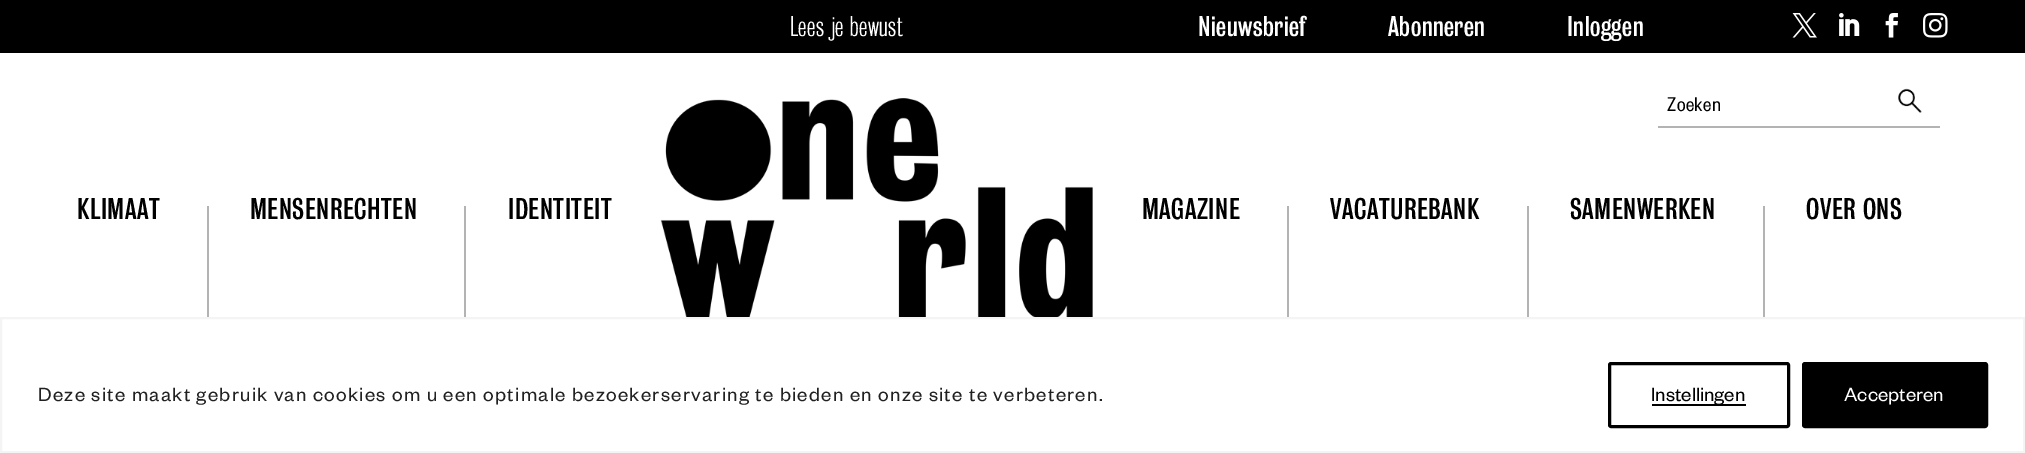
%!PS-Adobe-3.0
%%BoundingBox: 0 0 2025 453
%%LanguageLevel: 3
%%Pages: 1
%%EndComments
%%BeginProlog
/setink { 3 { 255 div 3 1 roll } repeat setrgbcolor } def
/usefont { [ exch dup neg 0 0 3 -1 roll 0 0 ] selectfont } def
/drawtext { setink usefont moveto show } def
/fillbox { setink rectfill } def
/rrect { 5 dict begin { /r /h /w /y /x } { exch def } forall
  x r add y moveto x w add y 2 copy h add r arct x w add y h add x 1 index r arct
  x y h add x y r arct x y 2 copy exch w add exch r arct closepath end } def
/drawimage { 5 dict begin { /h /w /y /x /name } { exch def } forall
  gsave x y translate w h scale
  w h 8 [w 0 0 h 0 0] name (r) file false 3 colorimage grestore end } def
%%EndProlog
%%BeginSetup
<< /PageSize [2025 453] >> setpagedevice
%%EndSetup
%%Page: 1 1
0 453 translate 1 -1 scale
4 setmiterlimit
0 0 2025 453 255 255 255 fillbox
0 0 2025 53 0 0 0 fillbox
/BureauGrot-Light 26 usefont
255 255 255 setink
790 36 moveto 0.5 0 (Lees je bewust) ashow
/BureauGrot-Regular 26 usefont
1198 36 moveto 0.5 0 (Nieuwsbrief) ashow
1388 36 moveto 0.5 0 (Abonneren) ashow
1567 36 moveto 0.5 0 (Inloggen) ashow
(assets/img1.rgb) 1792 13 25 25 drawimage
(assets/img2.rgb) 1839 13 21 23 drawimage
(assets/img3.rgb) 1885 13 13 25 drawimage
(assets/img4.rgb) 1923 13 25 25 drawimage
1658 126 282 2 179 179 179 fillbox
/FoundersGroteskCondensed-Regular 22 usefont
0 0 0 setink
1667 111 moveto 0.5 0 (Zoeken) ashow
(assets/img5.rgb) 1898 88 24 25 drawimage
/BureauGrot-Regular 27.25 usefont
77 219 moveto 0.5 0 (KLIMAAT) ashow
207 206 2 111 179 179 179 fillbox
0 0 0 setink
250 219 moveto 0.5 0 (MENSENRECHTEN) ashow
464 206 2 111 179 179 179 fillbox
0 0 0 setink
508 219 moveto 0.5 0 (IDENTITEIT) ashow
(assets/img6.rgb) 660 98 433 219 drawimage
1142 219 moveto 0.5 0 (MAGAZINE) ashow
1287 206 2 111 179 179 179 fillbox
0 0 0 setink
1330 219 moveto 0.5 0 (VACATUREBANK) ashow
1527 206 2 111 179 179 179 fillbox
0 0 0 setink
1570 219 moveto 0.5 0 (SAMENWERKEN) ashow
1763 206 2 111 179 179 179 fillbox
0 0 0 setink
1806 219 moveto 0.5 0 (OVER ONS) ashow
244 244 244 setink
2 setlinewidth
1 318 2023 134 rectstroke
/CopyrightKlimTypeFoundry-Regular 21 usefont
33 33 33 setink
38 401 moveto 1.31 0 (Deze site maakt gebruik van cookies om u een optimale bezoekerservaring te bieden en onze site te verbeteren.) ashow
0 0 0 setink
3 setlinewidth
1609.5 363.5 179 63 1.5 rrect stroke
1652 404 94 2 0 0 0 fillbox
(Instellingen) 1651 401 /CopyrightKlimTypeFoundry-Regular 21 0 0 0 drawtext
1803.5 363.5 183 63 1.5 rrect gsave fill grestore
stroke
(Accepteren) 1844 401 /CopyrightKlimTypeFoundry-Regular 21 255 255 255 drawtext
showpage
%%EOF
